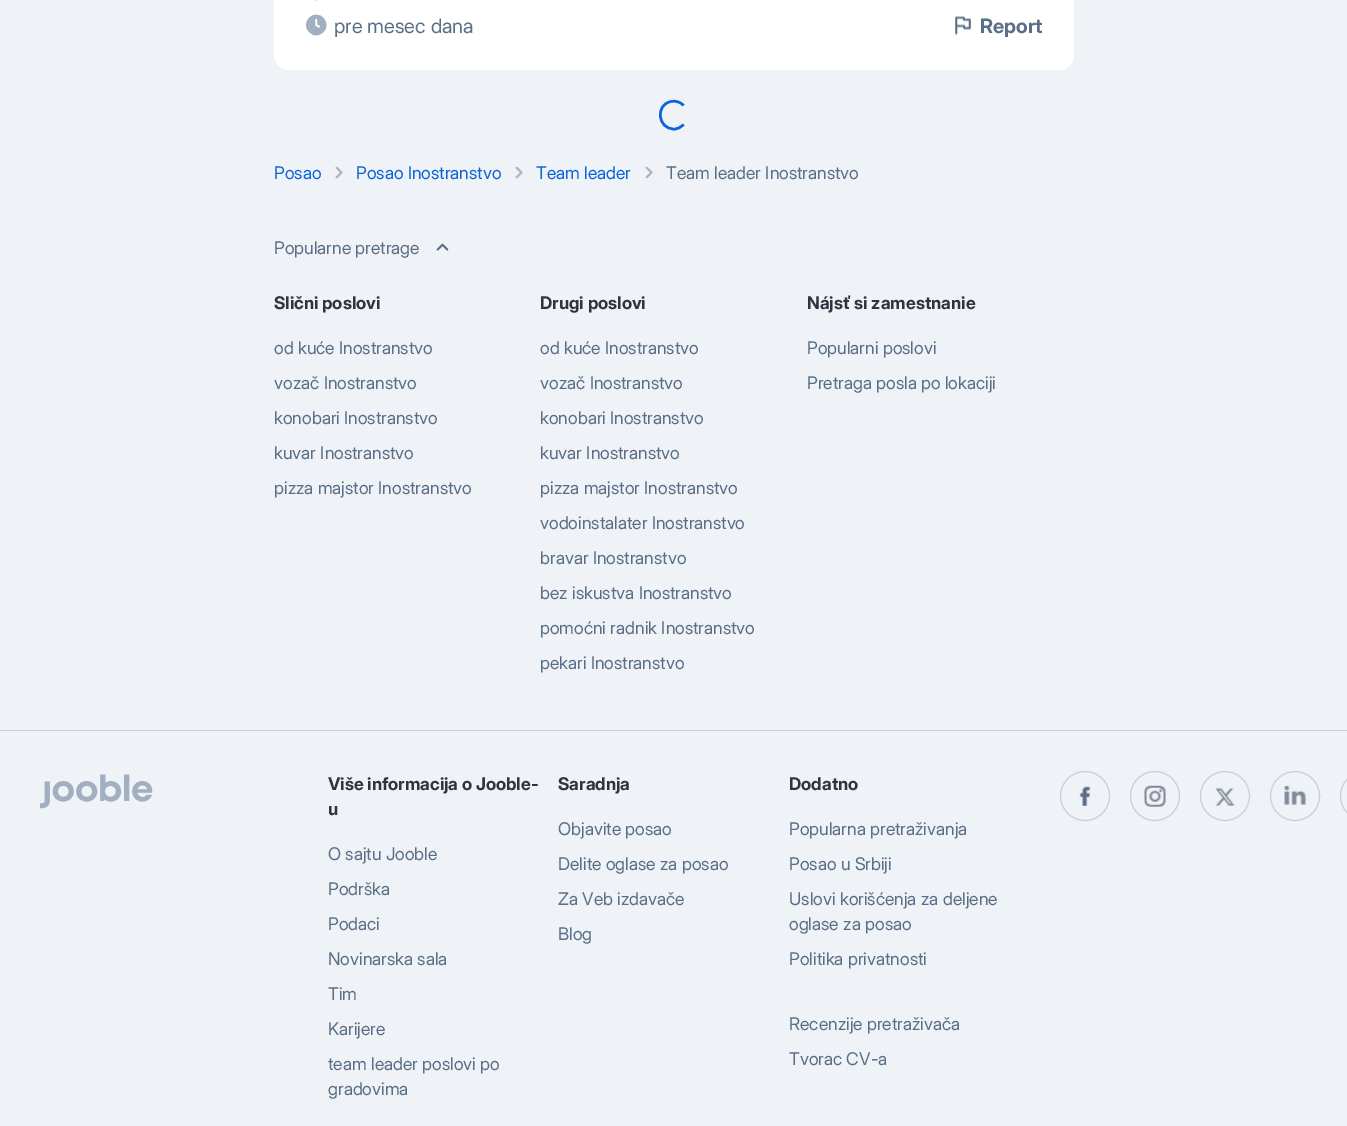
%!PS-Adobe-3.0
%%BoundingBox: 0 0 1347 1126
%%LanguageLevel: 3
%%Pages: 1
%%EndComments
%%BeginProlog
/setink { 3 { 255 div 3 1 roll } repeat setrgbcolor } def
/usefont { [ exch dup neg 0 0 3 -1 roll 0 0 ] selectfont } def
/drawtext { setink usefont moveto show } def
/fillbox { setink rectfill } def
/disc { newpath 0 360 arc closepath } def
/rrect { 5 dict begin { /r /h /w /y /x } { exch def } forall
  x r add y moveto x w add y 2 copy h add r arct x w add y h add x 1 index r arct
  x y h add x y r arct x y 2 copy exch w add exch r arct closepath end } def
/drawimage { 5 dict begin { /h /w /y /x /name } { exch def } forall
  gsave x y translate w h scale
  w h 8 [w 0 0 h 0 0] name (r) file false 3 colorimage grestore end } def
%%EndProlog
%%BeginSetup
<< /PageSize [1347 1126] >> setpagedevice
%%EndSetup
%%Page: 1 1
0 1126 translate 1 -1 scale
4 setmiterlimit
0 0 1347 1126 239 242 246 fillbox
255 255 255 setink
274 -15 800 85 15 rrect fill
(assets/img1.rgb) 315 0 2 1 drawimage
(assets/img2.rgb) 305 14 22 22 drawimage
(pre mesec dana) 334 33 /InterDisplay-Regular 20 90 111 135 drawtext
(assets/img3.rgb) 955 16 16 19 drawimage
(Report) 980 33 /InterDisplay-Bold 20 90 111 135 drawtext
11 100 217 setink
2.5 setlinewidth
683.5 124.5 moveto 681 127.5 677.5 129 674 129 curveto 657.5 129 655 104.5 671 101.5 curveto 675.5 100.5 680.5 102 683.5 105.5 curveto stroke
(Posao) 274 179 /InterDisplay-Regular 17.5 11 100 217 drawtext
(assets/img4.rgb) 335 166 9 13 drawimage
(Posao Inostranstvo) 356 179 /InterDisplay-Regular 17.5 11 100 217 drawtext
(assets/img4.rgb) 515 166 9 13 drawimage
(Team leader) 536 179 /InterDisplay-Regular 17.5 11 100 217 drawtext
(assets/img4.rgb) 645 166 9 13 drawimage
(Team leader Inostranstvo) 666 179 /InterDisplay-Regular 17.5 90 111 135 drawtext
(Popularne pretrage) 274 254 /InterDisplay-Regular 17.5 90 111 135 drawtext
(assets/img5.rgb) 436 243 13 8 drawimage
(Slični poslovi) 274 309 /InterDisplay-Bold 17.5 45 53 64 drawtext
(od kuće Inostranstvo) 274 354 /InterDisplay-Regular 17.5 90 111 135 drawtext
(vozač Inostranstvo) 274 389 /InterDisplay-Regular 17.5 90 111 135 drawtext
(konobari Inostranstvo) 274 424 /InterDisplay-Regular 17.5 90 111 135 drawtext
(kuvar Inostranstvo) 274 459 /InterDisplay-Regular 17.5 90 111 135 drawtext
(pizza majstor Inostranstvo) 274 494 /InterDisplay-Regular 17.5 90 111 135 drawtext
(Drugi poslovi) 540 309 /InterDisplay-Bold 17.5 45 53 64 drawtext
(od kuće Inostranstvo) 540 354 /InterDisplay-Regular 17.5 90 111 135 drawtext
(vozač Inostranstvo) 540 389 /InterDisplay-Regular 17.5 90 111 135 drawtext
(konobari Inostranstvo) 540 424 /InterDisplay-Regular 17.5 90 111 135 drawtext
(kuvar Inostranstvo) 540 459 /InterDisplay-Regular 17.5 90 111 135 drawtext
(pizza majstor Inostranstvo) 540 494 /InterDisplay-Regular 17.5 90 111 135 drawtext
(vodoinstalater Inostranstvo) 540 529 /InterDisplay-Regular 17.5 90 111 135 drawtext
(bravar Inostranstvo) 540 564 /InterDisplay-Regular 17.5 90 111 135 drawtext
(bez iskustva Inostranstvo) 540 599 /InterDisplay-Regular 17.5 90 111 135 drawtext
(pomoćni radnik Inostranstvo) 540 634 /InterDisplay-Regular 17.5 90 111 135 drawtext
(pekari Inostranstvo) 540 669 /InterDisplay-Regular 17.5 90 111 135 drawtext
(Nájsť si zamestnanie) 807 309 /InterDisplay-Bold 17.5 45 53 64 drawtext
(Popularni poslovi) 807 354 /InterDisplay-Regular 17.5 90 111 135 drawtext
(Pretraga posla po lokaciji) 807 389 /InterDisplay-Regular 17.5 90 111 135 drawtext
0 730 1347 1 197 208 222 fillbox
(assets/img6.rgb) 40 774 113 35 drawimage
(Više informacija o Jooble-) 328 790 /InterDisplay-Bold 17.5 45 53 64 drawtext
(u) 328 815 /InterDisplay-Bold 17.5 45 53 64 drawtext
(O sajtu Jooble) 328 860 /InterDisplay-Regular 17.5 90 111 135 drawtext
(Podrška) 328 895 /InterDisplay-Regular 17.5 90 111 135 drawtext
(Podaci) 328 930 /InterDisplay-Regular 17.5 90 111 135 drawtext
(Novinarska sala) 328 965 /InterDisplay-Regular 17.5 90 111 135 drawtext
(Tim) 328 1000 /InterDisplay-Regular 17.5 90 111 135 drawtext
(Karijere) 328 1035 /InterDisplay-Regular 17.5 90 111 135 drawtext
(team leader poslovi po) 328 1070 /InterDisplay-Regular 17.5 90 111 135 drawtext
(gradovima) 328 1095 /InterDisplay-Regular 17.5 90 111 135 drawtext
(Saradnja) 558 790 /InterDisplay-Bold 17.5 45 53 64 drawtext
(Objavite posao) 558 835 /InterDisplay-Regular 17.5 90 111 135 drawtext
(Delite oglase za posao) 558 870 /InterDisplay-Regular 17.5 90 111 135 drawtext
(Za Veb izdavače) 558 905 /InterDisplay-Regular 17.5 90 111 135 drawtext
(Blog) 558 940 /InterDisplay-Regular 17.5 90 111 135 drawtext
(Dodatno) 789 790 /InterDisplay-Bold 17.5 45 53 64 drawtext
(Popularna pretraživanja) 789 835 /InterDisplay-Regular 17.5 90 111 135 drawtext
(Posao u Srbiji) 789 870 /InterDisplay-Regular 17.5 90 111 135 drawtext
(Uslovi korišćenja za deljene) 789 905 /InterDisplay-Regular 17.5 90 111 135 drawtext
(oglase za posao) 789 930 /InterDisplay-Regular 17.5 90 111 135 drawtext
(Politika privatnosti) 789 965 /InterDisplay-Regular 17.5 90 111 135 drawtext
(Recenzije pretraživača) 789 1030 /InterDisplay-Regular 17.5 90 111 135 drawtext
(Tvorac CV-a) 789 1065 /InterDisplay-Regular 17.5 90 111 135 drawtext
197 208 222 setink
1 setlinewidth
1085 796 24.5 disc stroke
(assets/img7.rgb) 1079 786 12 20 drawimage
1155 796 24.5 disc stroke
(assets/img8.rgb) 1144 785 22 22 drawimage
1225 796 24.5 disc stroke
(assets/img9.rgb) 1215 787 20 19 drawimage
1295 796 24.5 disc stroke
(assets/img10.rgb) 1284 785 22 20 drawimage
1340.5 771.5 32 49 24.5 rrect stroke
showpage
%%EOF
